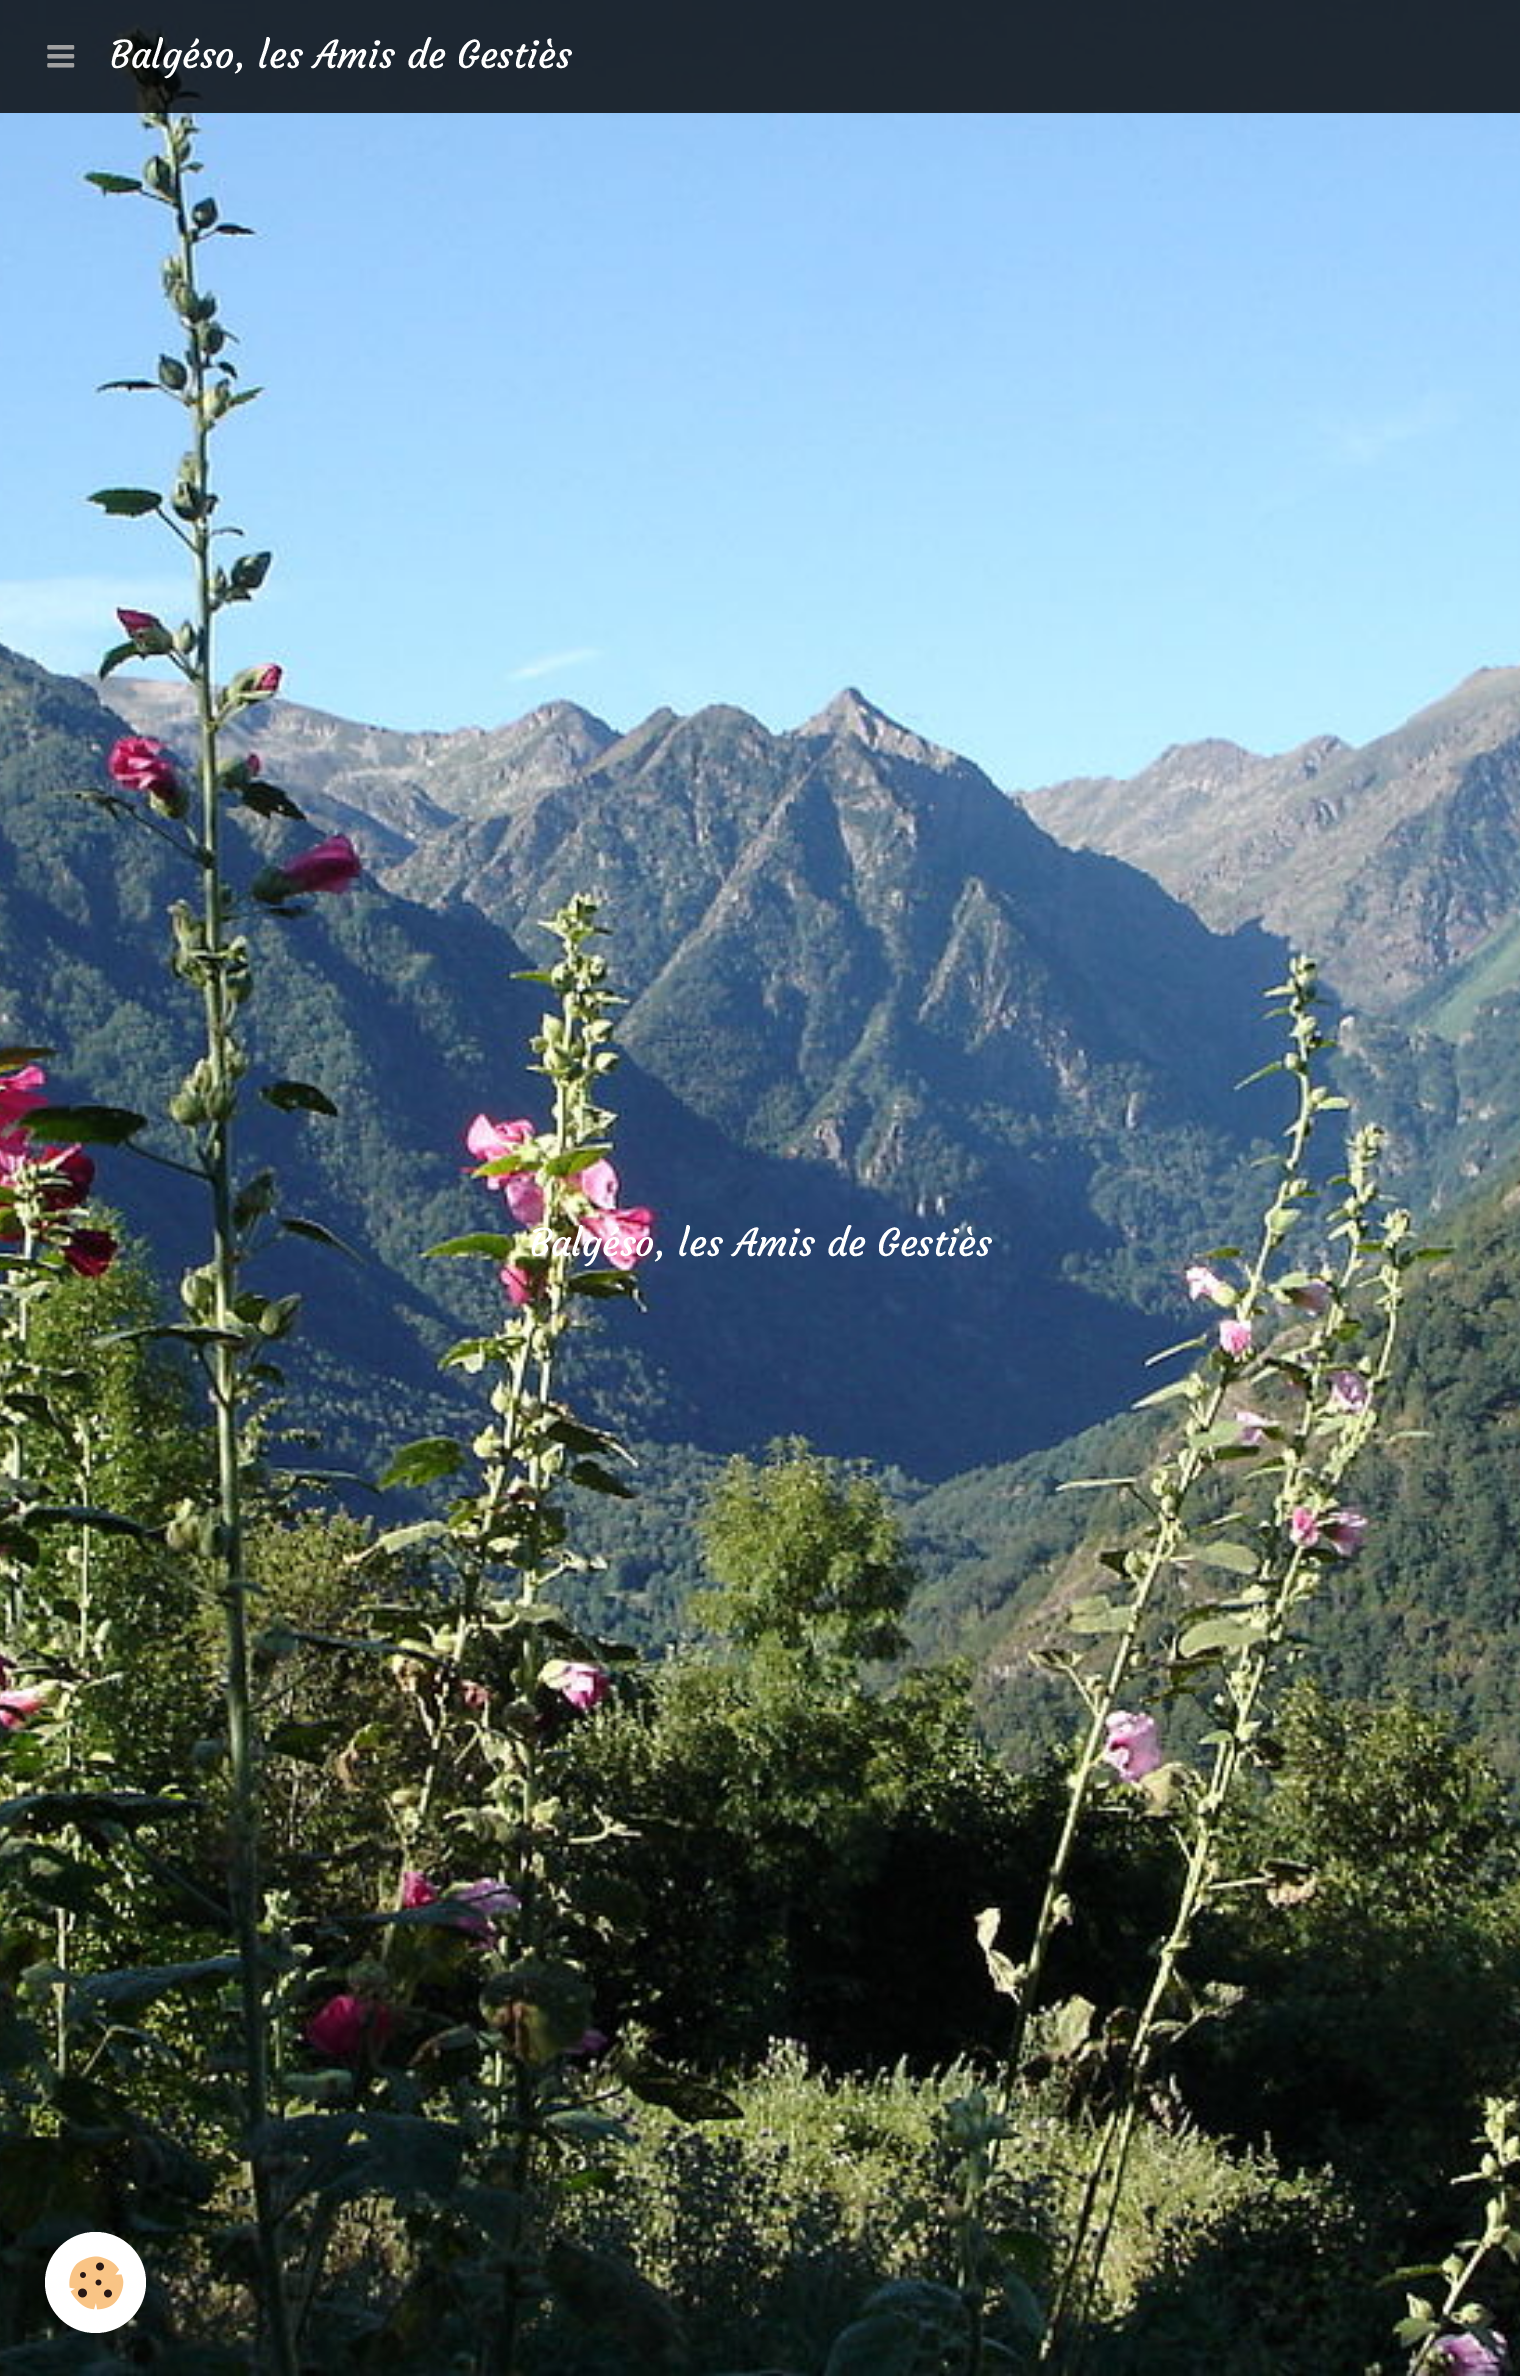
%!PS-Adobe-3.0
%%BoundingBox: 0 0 1520 2376
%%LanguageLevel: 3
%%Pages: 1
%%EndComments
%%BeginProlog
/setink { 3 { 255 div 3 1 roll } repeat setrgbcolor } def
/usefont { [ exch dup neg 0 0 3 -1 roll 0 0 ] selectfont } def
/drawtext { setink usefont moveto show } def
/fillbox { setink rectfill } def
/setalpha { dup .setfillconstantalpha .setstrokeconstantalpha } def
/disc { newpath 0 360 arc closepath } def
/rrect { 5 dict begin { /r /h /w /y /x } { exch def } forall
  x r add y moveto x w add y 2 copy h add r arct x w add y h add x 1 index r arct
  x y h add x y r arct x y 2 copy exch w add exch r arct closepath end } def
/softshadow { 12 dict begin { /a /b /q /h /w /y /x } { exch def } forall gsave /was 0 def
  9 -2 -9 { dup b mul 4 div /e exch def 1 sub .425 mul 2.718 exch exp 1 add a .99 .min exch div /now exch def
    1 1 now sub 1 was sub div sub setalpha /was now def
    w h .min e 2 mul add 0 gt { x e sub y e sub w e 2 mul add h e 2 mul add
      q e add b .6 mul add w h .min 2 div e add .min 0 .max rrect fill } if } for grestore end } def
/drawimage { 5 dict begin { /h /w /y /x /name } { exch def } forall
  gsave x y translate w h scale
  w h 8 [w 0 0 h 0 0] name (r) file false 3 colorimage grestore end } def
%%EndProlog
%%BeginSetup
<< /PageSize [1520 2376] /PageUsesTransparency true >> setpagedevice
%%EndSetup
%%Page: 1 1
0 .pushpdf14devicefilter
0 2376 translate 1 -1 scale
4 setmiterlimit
0 0 1520 2376 255 255 255 fillbox
(assets/img2.rgb) 0 0 1520 2376 drawimage
0.8 setalpha
0 0 1520 113 0 0 0 fillbox
1 setalpha
(assets/img1.rgb) 47 45 28 23 drawimage
gsave
110 29 462 54 rectclip
(Balgéso, les Amis de Gestiès) 110 68 /Courgette-Regular 37.75 255 255 255 drawtext
grestore
(Balgéso, les Amis de Gestiès) 530 1256 /Courgette-Regular 37.75 255 255 255 drawtext
0 0 0 setink
45 2239 101 101 50.5 11 0.24 softshadow
255 255 255 setink
95.5 2282.5 50.5 disc fill
(assets/img3.rgb) 69 2256 55 54 drawimage
.poppdf14devicefilter showpage
%%EOF
